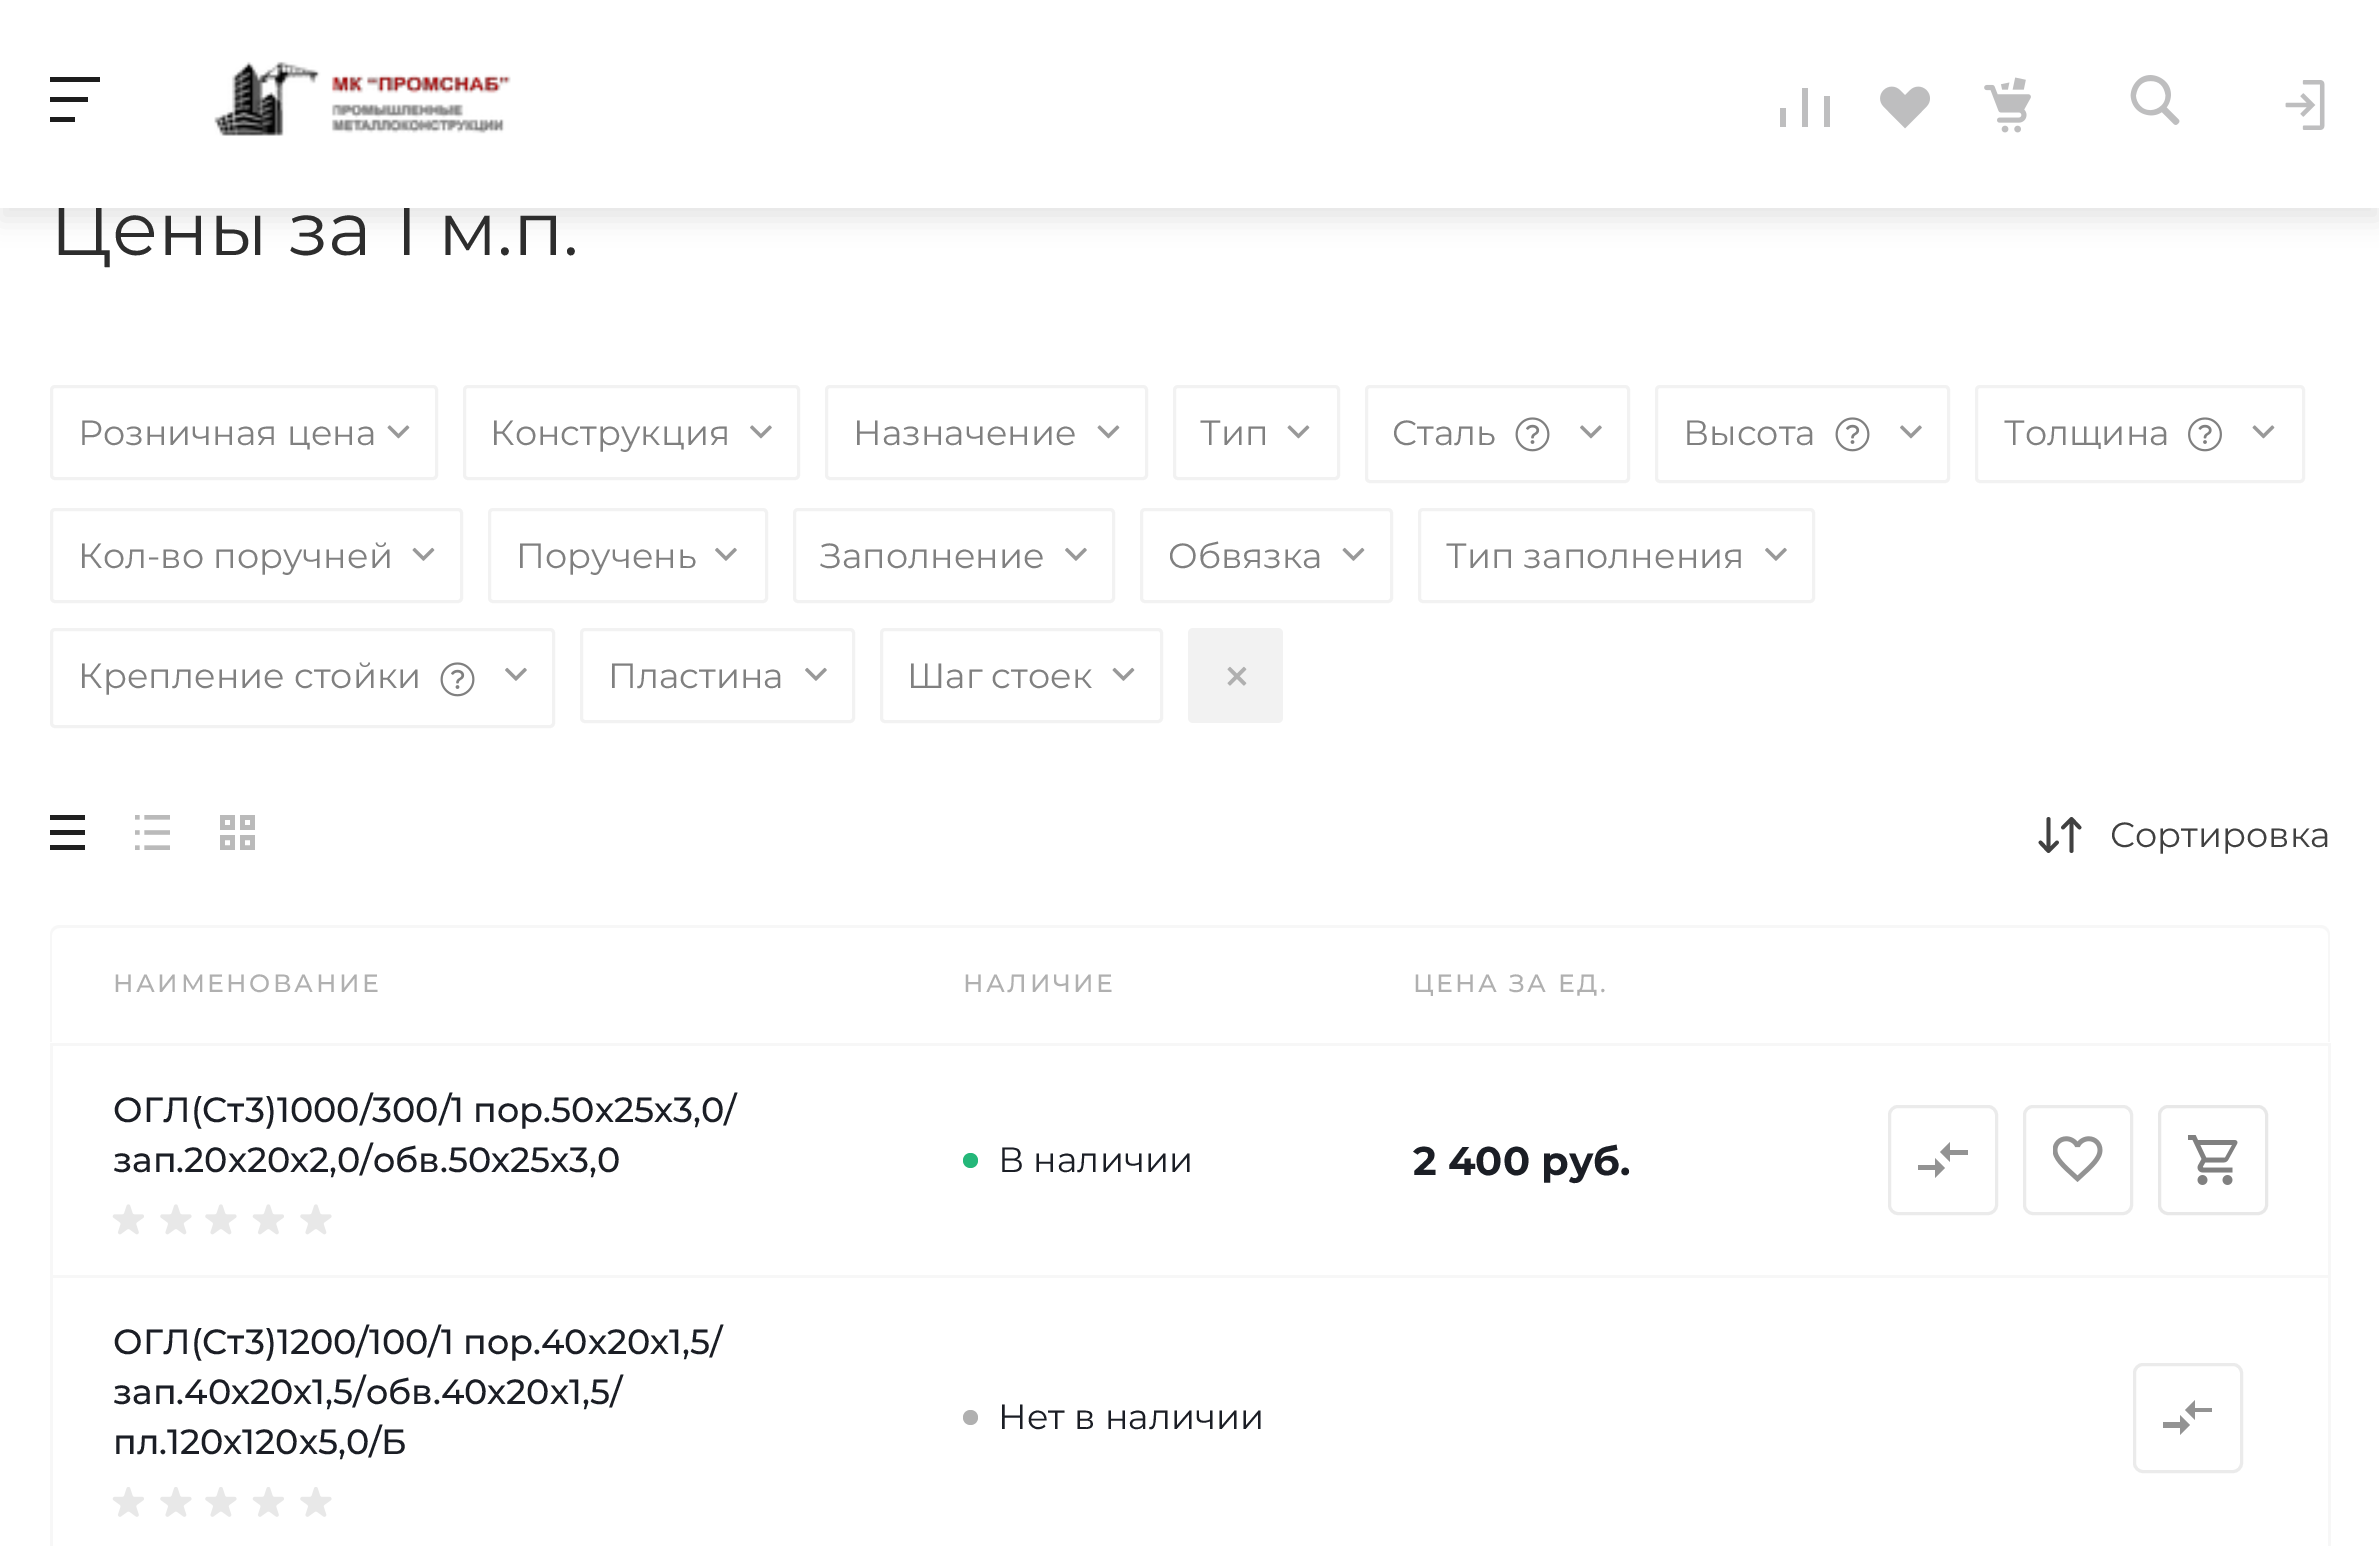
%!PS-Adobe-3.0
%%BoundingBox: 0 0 2379 1546
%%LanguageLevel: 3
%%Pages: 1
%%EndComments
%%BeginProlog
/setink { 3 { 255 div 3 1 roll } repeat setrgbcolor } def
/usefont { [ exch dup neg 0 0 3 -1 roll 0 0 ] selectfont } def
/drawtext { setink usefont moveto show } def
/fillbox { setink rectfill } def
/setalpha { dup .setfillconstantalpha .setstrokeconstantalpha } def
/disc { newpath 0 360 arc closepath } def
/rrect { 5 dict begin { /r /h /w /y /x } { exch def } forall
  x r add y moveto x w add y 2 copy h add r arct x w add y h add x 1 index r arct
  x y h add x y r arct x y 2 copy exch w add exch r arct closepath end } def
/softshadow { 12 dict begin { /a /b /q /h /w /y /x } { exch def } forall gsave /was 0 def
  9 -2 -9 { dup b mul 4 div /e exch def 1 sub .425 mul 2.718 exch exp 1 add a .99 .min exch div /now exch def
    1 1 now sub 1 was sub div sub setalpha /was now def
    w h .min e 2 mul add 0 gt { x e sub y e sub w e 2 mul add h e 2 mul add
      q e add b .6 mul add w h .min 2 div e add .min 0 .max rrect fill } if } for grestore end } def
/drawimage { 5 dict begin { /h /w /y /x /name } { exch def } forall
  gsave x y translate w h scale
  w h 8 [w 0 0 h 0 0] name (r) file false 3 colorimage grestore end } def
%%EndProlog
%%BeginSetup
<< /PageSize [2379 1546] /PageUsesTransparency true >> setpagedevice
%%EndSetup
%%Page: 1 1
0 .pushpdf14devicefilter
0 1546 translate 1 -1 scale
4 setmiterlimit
0 0 2379 1546 255 255 255 fillbox
0 0 0 setink
0 13 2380 207 0 12.5 0.1 softshadow
(Цены за 1 м.п.) 50 255 /Montserrat-Regular 75 45 45 45 drawtext
0 0 2379 208 255 255 255 fillbox
29 29 29 setink
50 77 moveto 50 82 lineto 100 82 lineto 100 77 lineto closepath 50 97 moveto 50 102 lineto 88 102 lineto 88 97 lineto closepath 50 117 moveto 50 122 lineto 75 122 lineto 75 117 lineto closepath fill
(assets/img1.rgb) 214 61 297 75 drawimage
190 190 191 setink
1780 127 moveto 1786 127 lineto 1786 108 lineto 1780 108 lineto closepath 1802 127 moveto 1808 127 lineto 1808 88 lineto 1802 88 lineto closepath 1824 96 moveto 1830 96 lineto 1830 127 lineto 1824 127 lineto closepath fill
(assets/img2.rgb) 1880 86 50 43 drawimage
(assets/img3.rgb) 1984 77 47 56 drawimage
(assets/img4.rgb) 2130 75 50 50 drawimage
(assets/img5.rgb) 2285 80 40 50 drawimage
242 242 242 setink
3 setlinewidth
51.5 386.5 385 92 3.5 rrect stroke
(Розничная цена) 78 445 /Montserrat-Regular 35 128 128 128 drawtext
(assets/img6.rgb) 387 425 23 14 drawimage
242 242 242 setink
464.5 386.5 334 92 3.5 rrect stroke
(Конструкция) 490 445 /Montserrat-Regular 35 128 128 128 drawtext
(assets/img7.rgb) 750 425 22 14 drawimage
242 242 242 setink
826.5 386.5 320 92 3.5 rrect stroke
(Назначение) 853 445 /Montserrat-Regular 35 128 128 128 drawtext
(assets/img6.rgb) 1097 425 23 14 drawimage
242 242 242 setink
1174.5 386.5 164 92 3.5 rrect stroke
(Тип) 1200 445 /Montserrat-Regular 35 128 128 128 drawtext
(assets/img6.rgb) 1287 425 23 14 drawimage
242 242 242 setink
1366.5 386.5 262 95 3.5 rrect stroke
(Сталь) 1392 445 /Montserrat-Regular 35 128 128 128 drawtext
(assets/img8.rgb) 1515 417 35 35 drawimage
(assets/img7.rgb) 1580 425 22 14 drawimage
242 242 242 setink
1656.5 386.5 292 95 3.5 rrect stroke
(Высота) 1683 445 /Montserrat-Regular 35 128 128 128 drawtext
(assets/img8.rgb) 1835 417 35 35 drawimage
(assets/img7.rgb) 1900 425 22 14 drawimage
242 242 242 setink
1976.5 386.5 327 95 3.5 rrect stroke
(Толщина) 2004 445 /Montserrat-Regular 35 128 128 128 drawtext
(assets/img9.rgb) 2188 417 34 35 drawimage
(assets/img6.rgb) 2252 425 23 14 drawimage
242 242 242 setink
51.5 509.5 410 92 3.5 rrect stroke
(Кол-во поручней) 78 568 /Montserrat-Regular 35 128 128 128 drawtext
(assets/img10.rgb) 412 547 23 14 drawimage
242 242 242 setink
489.5 509.5 277 92 3.5 rrect stroke
(Поручень) 516 568 /Montserrat-Regular 35 128 128 128 drawtext
(assets/img11.rgb) 715 547 22 14 drawimage
242 242 242 setink
794.5 509.5 319 92 3.5 rrect stroke
(Заполнение) 820 568 /Montserrat-Regular 35 128 128 128 drawtext
(assets/img11.rgb) 1065 547 22 14 drawimage
242 242 242 setink
1141.5 509.5 250 92 3.5 rrect stroke
(Обвязка) 1168 568 /Montserrat-Regular 35 128 128 128 drawtext
(assets/img10.rgb) 1342 547 23 14 drawimage
242 242 242 setink
1419.5 509.5 394 92 3.5 rrect stroke
(Тип заполнения) 1446 568 /Montserrat-Regular 35 128 128 128 drawtext
(assets/img11.rgb) 1765 547 22 14 drawimage
242 242 242 setink
51.5 629.5 502 97 3.5 rrect stroke
(Крепление стойки) 78 688 /Montserrat-Regular 35 128 128 128 drawtext
(assets/img8.rgb) 440 662 35 35 drawimage
(assets/img11.rgb) 505 667 22 14 drawimage
242 242 242 setink
581.5 629.5 272 92 3.5 rrect stroke
(Пластина) 608 688 /Montserrat-Regular 35 128 128 128 drawtext
(assets/img11.rgb) 805 667 22 14 drawimage
242 242 242 setink
881.5 629.5 280 92 3.5 rrect stroke
(Шаг стоек) 907 688 /Montserrat-Regular 35 128 128 128 drawtext
(assets/img10.rgb) 1112 667 23 14 drawimage
242 242 242 setink
1188 628 95 95 5 rrect fill
(assets/img12.rgb) 1227 666 20 20 drawimage
32 32 32 setink
50 815 moveto 50 820 lineto 85 820 lineto 85 815 lineto closepath 50 845 moveto 50 850 lineto 85 850 lineto 85 845 lineto closepath 50 830 moveto 50 835 lineto 85 835 lineto 85 830 lineto closepath fill
(assets/img13.rgb) 135 815 35 35 drawimage
(assets/img14.rgb) 220 815 35 35 drawimage
64 64 64 setink
3.8 setlinewidth
1 setlinecap
1 setlinejoin
2040.5 842.5 moveto 2048.5 851 lineto 2057 842.5 lineto 2048.5 819 moveto 2048.5 851 lineto 2079.5 827.5 moveto 2071.5 819 lineto 2063 827.5 lineto 2071.5 851 moveto 2071.5 819 lineto stroke
(Сортировка) 2110 847 /Montserrat-Regular 35 64 64 64 drawtext
247 247 247 setink
60 925 moveto 2320 925 lineto 2326 925 2330 929 2330 935 curveto 2330 1042 lineto 50 1042 lineto 50 935 lineto 50 929 54 925 60 925 curveto closepath 60 928 moveto 2320 928 lineto 2324 928 2328 931 2328 935 curveto 2328 1042 lineto 52 1042 lineto 52 935 lineto 52 931 56 928 60 928 curveto closepath eofill
/Montserrat-Medium 25 usefont
176 176 176 setink
113 992 moveto 2.5 0 (НАИМЕНОВАНИЕ) ashow
963 992 moveto 2.5 0 (НАЛИЧИЕ) ashow
1413 992 moveto 2.5 0 (ЦЕНА ЗА ЕД.) ashow
50 1043 2280 3 247 247 247 fillbox
2328 1043 3 232 247 247 247 fillbox
50 1043 3 232 247 247 247 fillbox
(ОГЛ\(Ст3\)1000/300/1 пор.50х25х3,0/) 113 1122 /Montserrat-Medium 35 27 30 37 drawtext
(зап.20х20х2,0/обв.50х25х3,0) 113 1172 /Montserrat-Medium 35 27 30 37 drawtext
(assets/img15.rgb) 112 1204 32 31 drawimage
(assets/img16.rgb) 160 1204 32 31 drawimage
(assets/img16.rgb) 205 1204 32 31 drawimage
(assets/img15.rgb) 252 1204 32 31 drawimage
(assets/img16.rgb) 300 1204 32 31 drawimage
36 183 121 setink
970.5 1160.5 7.5 disc fill
(В наличии) 998 1172 /Montserrat-Regular 35 27 30 37 drawtext
(2 400 руб.) 1413 1175 /Montserrat-Bold 40 27 30 37 drawtext
235 235 235 setink
3 setlinewidth
0 setlinecap
0 setlinejoin
1889.5 1106.5 107 107 8.5 rrect stroke
147 147 147 setink
1935 1165 moveto 1918 1165 lineto 1918 1170 lineto 1935 1170 lineto 1935 1178 lineto 1945 1168 lineto 1935 1158 lineto closepath 1950 1162 moveto 1950 1155 lineto 1968 1155 lineto 1968 1150 lineto 1950 1150 lineto 1950 1142 lineto 1940 1152 lineto closepath fill
235 235 235 setink
2024.5 1106.5 107 107 8.5 rrect stroke
(assets/img17.rgb) 2053 1136 50 46 drawimage
232 232 232 setink
2159.5 1106.5 107 107 8.5 rrect stroke
(assets/img18.rgb) 2188 1135 50 50 drawimage
50 1275 2280 3 247 247 247 fillbox
2328 1275 3 271 247 247 247 fillbox
50 1275 3 271 247 247 247 fillbox
(ОГЛ\(Ст3\)1200/100/1 пор.40х20х1,5/) 113 1354 /Montserrat-Medium 35 27 30 37 drawtext
(зап.40х20х1,5/обв.40х20х1,5/) 113 1404 /Montserrat-Medium 35 27 30 37 drawtext
(пл.120х120х5,0/Б) 113 1454 /Montserrat-Medium 35 27 30 37 drawtext
(assets/img19.rgb) 112 1487 32 30 drawimage
(assets/img20.rgb) 160 1487 32 30 drawimage
(assets/img20.rgb) 205 1487 32 30 drawimage
(assets/img19.rgb) 252 1487 32 30 drawimage
(assets/img20.rgb) 300 1487 32 30 drawimage
176 176 176 setink
970.5 1417.5 7.5 disc fill
(Нет в наличии) 998 1429 /Montserrat-Regular 35 27 30 37 drawtext
235 235 235 setink
2134.5 1364.5 107 107 8.5 rrect stroke
gsave
2163 1393 50 50 rectclip
147 147 147 setink
2180 1422 moveto 2162 1422 lineto 2162 1428 lineto 2180 1428 lineto 2180 1435 lineto 2190 1425 lineto 2180 1415 lineto closepath 2195 1420 moveto 2195 1412 lineto 2212 1412 lineto 2212 1408 lineto 2195 1408 lineto 2195 1400 lineto 2185 1410 lineto closepath fill
grestore
.poppdf14devicefilter showpage
%%EOF
